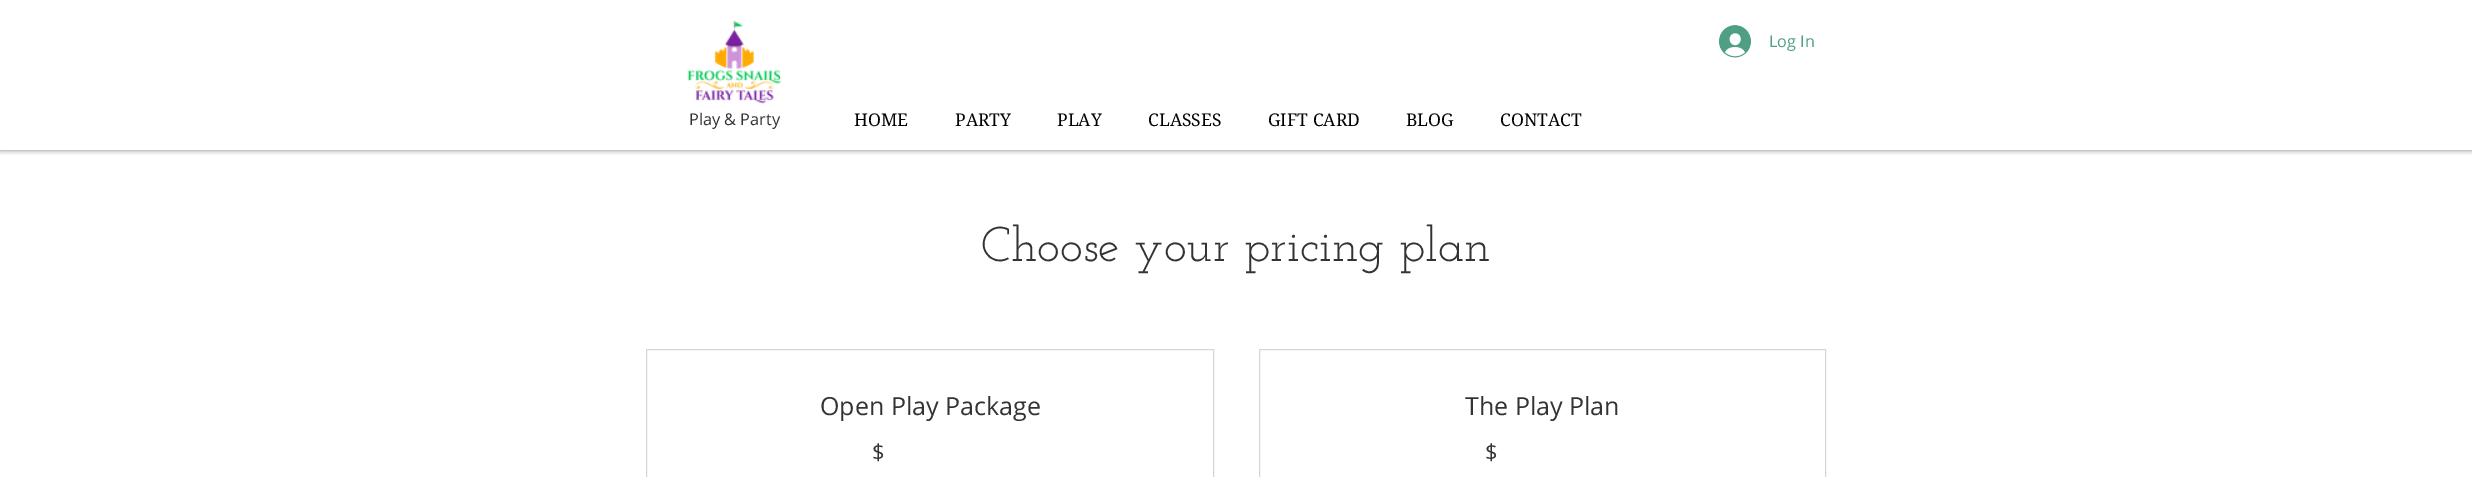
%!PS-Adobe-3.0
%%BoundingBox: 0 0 2472 477
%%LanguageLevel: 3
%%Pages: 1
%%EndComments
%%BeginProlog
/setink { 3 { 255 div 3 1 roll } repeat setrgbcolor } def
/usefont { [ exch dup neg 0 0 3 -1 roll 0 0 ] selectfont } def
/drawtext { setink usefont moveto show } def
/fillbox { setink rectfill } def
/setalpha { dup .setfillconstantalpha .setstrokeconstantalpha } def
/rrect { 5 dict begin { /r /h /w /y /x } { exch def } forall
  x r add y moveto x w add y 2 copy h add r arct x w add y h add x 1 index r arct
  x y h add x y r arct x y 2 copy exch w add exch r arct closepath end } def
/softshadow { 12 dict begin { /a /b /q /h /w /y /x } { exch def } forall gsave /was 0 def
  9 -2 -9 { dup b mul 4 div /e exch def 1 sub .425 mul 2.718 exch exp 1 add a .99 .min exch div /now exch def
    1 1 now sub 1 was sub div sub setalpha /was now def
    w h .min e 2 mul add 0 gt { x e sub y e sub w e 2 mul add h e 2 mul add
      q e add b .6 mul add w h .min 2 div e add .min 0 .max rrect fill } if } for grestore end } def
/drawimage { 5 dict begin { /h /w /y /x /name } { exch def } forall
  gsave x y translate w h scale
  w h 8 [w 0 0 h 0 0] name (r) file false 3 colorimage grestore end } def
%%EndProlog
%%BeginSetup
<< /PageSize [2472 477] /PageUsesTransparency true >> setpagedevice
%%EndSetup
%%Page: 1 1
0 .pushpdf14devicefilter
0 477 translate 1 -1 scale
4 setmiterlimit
0 0 2472 477 255 255 255 fillbox
gsave
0 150 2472 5 rectclip
0 0 0 setink
0 0 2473 150 0 3 0.5 softshadow
grestore
(assets/img1.rgb) 687 20 95 84 drawimage
(assets/img2.rgb) 1719 25 32 33 drawimage
(Log In) 1769 47 /OpenSans-Regular 16.25 79 159 131 drawtext
(Play & Party) 689 125 /OpenSans-Regular 16.25 51 51 51 drawtext
(HOME) 854 126 /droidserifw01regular-Regular 17.5 0 0 0 drawtext
(PARTY) 955 126 /droidserifw01regular-Regular 17.5 0 0 0 drawtext
(PLAY) 1057 126 /droidserifw01regular-Regular 17.5 0 0 0 drawtext
(CLASSES) 1148 126 /droidserifw01regular-Regular 17.5 0 0 0 drawtext
(GIFT CARD) 1268 126 /droidserifw01regular-Regular 17.5 0 0 0 drawtext
(BLOG) 1406 126 /droidserifw01regular-Regular 17.5 0 0 0 drawtext
(CONTACT) 1500 126 /droidserifw01regular-Regular 17.5 0 0 0 drawtext
(Choose your pricing plan) 981 261 /JosefinSlab-Regular 48.75 51 51 51 drawtext
214 214 214 setink
646.5 349.5 567 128 rectstroke
(Open Play Package) 820 415 /OpenSans-Regular 25 51 51 51 drawtext
($) 872 460 /OpenSans-Regular 22 51 51 51 drawtext
214 214 214 setink
1259.5 349.5 566 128 rectstroke
(The Play Plan) 1465 415 /OpenSans-Regular 25 51 51 51 drawtext
($) 1485 460 /OpenSans-Regular 22 51 51 51 drawtext
.poppdf14devicefilter showpage
%%EOF
